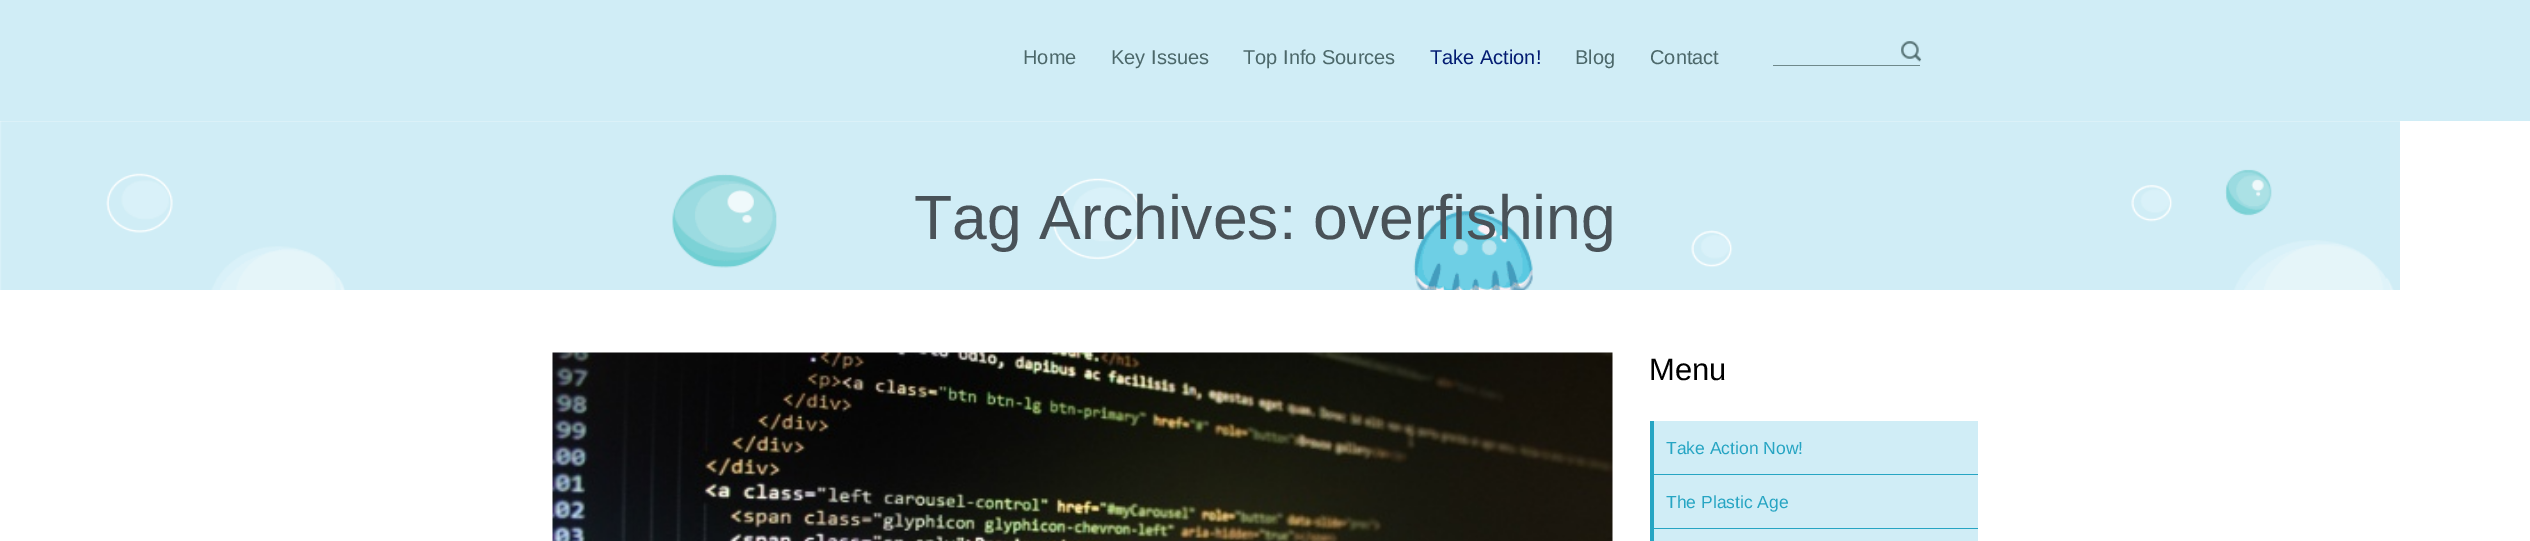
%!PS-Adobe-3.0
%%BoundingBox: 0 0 2530 541
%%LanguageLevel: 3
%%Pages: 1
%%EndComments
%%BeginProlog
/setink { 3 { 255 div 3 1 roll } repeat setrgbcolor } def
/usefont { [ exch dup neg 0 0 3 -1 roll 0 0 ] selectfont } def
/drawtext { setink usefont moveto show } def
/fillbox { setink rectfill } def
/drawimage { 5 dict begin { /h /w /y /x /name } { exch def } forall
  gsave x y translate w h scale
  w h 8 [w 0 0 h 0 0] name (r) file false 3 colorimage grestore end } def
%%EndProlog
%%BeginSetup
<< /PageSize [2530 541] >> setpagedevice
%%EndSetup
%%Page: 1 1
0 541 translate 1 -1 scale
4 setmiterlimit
0 0 2530 541 255 255 255 fillbox
0 0 2530 121 208 237 246 fillbox
(Home) 1023 64 /LiberationSans-Regular 20 76 104 106 drawtext
(Key Issues) 1111 64 /LiberationSans-Regular 20 76 104 106 drawtext
(Top Info Sources) 1243 64 /LiberationSans-Regular 20 76 104 106 drawtext
(Take Action!) 1430 64 /LiberationSans-Regular 20 3 28 114 drawtext
(Blog) 1575 64 /LiberationSans-Regular 20 76 104 106 drawtext
(Contact) 1650 64 /LiberationSans-Regular 20 76 104 106 drawtext
(assets/img1.rgb) 1901 41 21 21 drawimage
1773 65 147 1 111 137 139 fillbox
(assets/img2.rgb) 0 121 2400 169 drawimage
(Tag Archives: overfishing) 914 239 /LiberationSans-Regular 62.5 73 82 88 drawtext
(assets/img3.rgb) 552 352 1061 189 drawimage
1654 421 324 120 208 237 246 fillbox
(Menu) 1649 380 /LiberationSans-Regular 31 0 0 0 drawtext
1650 474 328 1 38 165 195 fillbox
1650 421 4 54 38 165 195 fillbox
(Take Action Now!) 1666 454 /LiberationSans-Regular 17.5 38 165 195 drawtext
1650 528 328 1 38 165 195 fillbox
1650 475 4 66 38 165 195 fillbox
(The Plastic Age) 1666 508 /LiberationSans-Regular 17.5 38 165 195 drawtext
showpage
%%EOF
